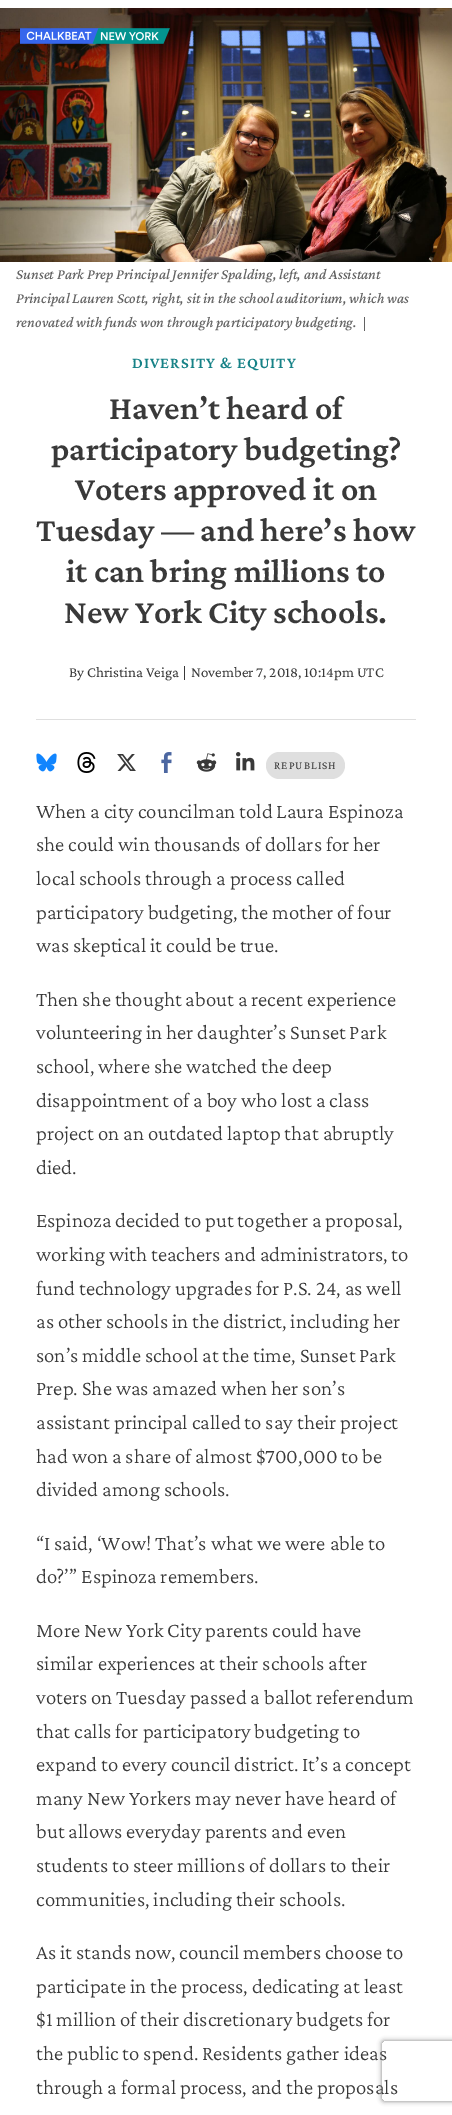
%!PS-Adobe-3.0
%%BoundingBox: 0 0 452 2115
%%LanguageLevel: 3
%%Pages: 1
%%EndComments
%%BeginProlog
/setink { 3 { 255 div 3 1 roll } repeat setrgbcolor } def
/usefont { [ exch dup neg 0 0 3 -1 roll 0 0 ] selectfont } def
/drawtext { setink usefont moveto show } def
/fillbox { setink rectfill } def
/setalpha { dup .setfillconstantalpha .setstrokeconstantalpha } def
/rrect { 5 dict begin { /r /h /w /y /x } { exch def } forall
  x r add y moveto x w add y 2 copy h add r arct x w add y h add x 1 index r arct
  x y h add x y r arct x y 2 copy exch w add exch r arct closepath end } def
/softshadow { 12 dict begin { /a /b /q /h /w /y /x } { exch def } forall gsave /was 0 def
  9 -2 -9 { dup b mul 4 div /e exch def 1 sub .425 mul 2.718 exch exp 1 add a .99 .min exch div /now exch def
    1 1 now sub 1 was sub div sub setalpha /was now def
    w h .min e 2 mul add 0 gt { x e sub y e sub w e 2 mul add h e 2 mul add
      q e add b .6 mul add w h .min 2 div e add .min 0 .max rrect fill } if } for grestore end } def
/drawimage { 5 dict begin { /h /w /y /x /name } { exch def } forall
  gsave x y translate w h scale
  w h 8 [w 0 0 h 0 0] name (r) file false 3 colorimage grestore end } def
%%EndProlog
%%BeginSetup
<< /PageSize [452 2115] /PageUsesTransparency true >> setpagedevice
%%EndSetup
%%Page: 1 1
0 .pushpdf14devicefilter
0 2115 translate 1 -1 scale
4 setmiterlimit
0 0 452 2115 255 255 255 fillbox
(assets/img2.rgb) 0 8 452 254 drawimage
(assets/img1.rgb) 20 28 150 16 drawimage
(Sunset Park Prep Principal Jennifer Spalding, left, and Assistant) 16 279 /CrimsonPro-MediumItalic 15 98 98 98 drawtext
(Principal Lauren Scott, right, sit in the school auditorium, which was) 16 303 /CrimsonPro-MediumItalic 15 98 98 98 drawtext
(renovated with funds won through participatory budgeting.) 16 327 /CrimsonPro-MediumItalic 15 98 98 98 drawtext
364 317 1 14 98 98 98 fillbox
/CrimsonPro-SemiBold 16 usefont
23 130 135 setink
132 368 moveto 1 0 (DIVERSITY & EQUITY) ashow
(Haven’t heard of) 109 419 /CrimsonPro-SemiBold 34 57 57 57 drawtext
(participatory budgeting?) 51 460 /CrimsonPro-SemiBold 34 57 57 57 drawtext
(Voters approved it on) 75 500 /CrimsonPro-SemiBold 34 57 57 57 drawtext
(Tuesday — and here’s how) 36 541 /CrimsonPro-SemiBold 34 57 57 57 drawtext
(it can bring millions to) 66 582 /CrimsonPro-SemiBold 34 57 57 57 drawtext
(New York City schools.) 64 623 /CrimsonPro-SemiBold 34 57 57 57 drawtext
36 719 380 1 223 223 223 fillbox
(By Christina Veiga) 69 677 /CrimsonPro-Regular 15 57 57 57 drawtext
184 666 1 14 57 57 57 fillbox
(November 7, 2018, 10:14pm UTC) 191 677 /CrimsonPro-Regular 15 57 57 57 drawtext
(assets/img3.rgb) 36 753 21 19 drawimage
(assets/img4.rgb) 77 752 19 21 drawimage
(assets/img5.rgb) 117 754 19 17 drawimage
(assets/img6.rgb) 161 752 11 21 drawimage
(assets/img7.rgb) 196 753 21 19 drawimage
(assets/img8.rgb) 236 752 19 19 drawimage
223 223 223 setink
266 752 79 27 13.5 rrect fill
/CrimsonPro-Regular 11.25 usefont
51 51 51 setink
274 769 moveto 1.1 0 (REPUBLISH) ashow
(When a city councilman told Laura Espinoza) 36 818 /CrimsonPro-Light 21 57 57 57 drawtext
(she could win thousands of dollars for her) 36 851 /CrimsonPro-Light 21 57 57 57 drawtext
(local schools through a process called) 36 885 /CrimsonPro-Light 21 57 57 57 drawtext
(participatory budgeting, the mother of four) 36 919 /CrimsonPro-Light 21 57 57 57 drawtext
(was skeptical it could be true.) 36 952 /CrimsonPro-Light 21 57 57 57 drawtext
(Then she thought about a recent experience) 36 1006 /CrimsonPro-Light 21 57 57 57 drawtext
(volunteering in her daughter’s Sunset Park) 36 1039 /CrimsonPro-Light 21 57 57 57 drawtext
(school, where she watched the deep) 36 1073 /CrimsonPro-Light 21 57 57 57 drawtext
(disappointment of a boy who lost a class) 36 1107 /CrimsonPro-Light 21 57 57 57 drawtext
(project on an outdated laptop that abruptly) 36 1140 /CrimsonPro-Light 21 57 57 57 drawtext
(died.) 36 1174 /CrimsonPro-Light 21 57 57 57 drawtext
(Espinoza decided to put together a proposal,) 36 1227 /CrimsonPro-Light 21 57 57 57 drawtext
(working with teachers and administrators, to) 36 1261 /CrimsonPro-Light 21 57 57 57 drawtext
(fund technology upgrades for P.S. 24, as well) 36 1295 /CrimsonPro-Light 21 57 57 57 drawtext
(as other schools in the district, including her) 36 1328 /CrimsonPro-Light 21 57 57 57 drawtext
(son’s middle school at the time, Sunset Park) 36 1362 /CrimsonPro-Light 21 57 57 57 drawtext
(Prep. She was amazed when her son’s) 36 1395 /CrimsonPro-Light 21 57 57 57 drawtext
(assistant principal called to say their project) 36 1429 /CrimsonPro-Light 21 57 57 57 drawtext
(had won a share of almost $700,000 to be) 36 1463 /CrimsonPro-Light 21 57 57 57 drawtext
(divided among schools.) 36 1496 /CrimsonPro-Light 21 57 57 57 drawtext
(“I said, ‘Wow! That’s what we were able to) 36 1550 /CrimsonPro-Light 21 57 57 57 drawtext
(do?’” Espinoza remembers.) 36 1583 /CrimsonPro-Light 21 57 57 57 drawtext
(More New York City parents could have) 36 1637 /CrimsonPro-Light 21 57 57 57 drawtext
(similar experiences at their schools after) 36 1670 /CrimsonPro-Light 21 57 57 57 drawtext
(voters on Tuesday passed a ballot referendum) 36 1704 /CrimsonPro-Light 21 57 57 57 drawtext
(that calls for participatory budgeting to) 36 1738 /CrimsonPro-Light 21 57 57 57 drawtext
(expand to every council district. It’s a concept) 36 1771 /CrimsonPro-Light 21 57 57 57 drawtext
(many New Yorkers may never have heard of) 36 1805 /CrimsonPro-Light 21 57 57 57 drawtext
(but allows everyday parents and even) 36 1838 /CrimsonPro-Light 21 57 57 57 drawtext
(students to steer millions of dollars to their) 36 1872 /CrimsonPro-Light 21 57 57 57 drawtext
(communities, including their schools.) 36 1906 /CrimsonPro-Light 21 57 57 57 drawtext
(As it stands now, council members choose to) 36 1959 /CrimsonPro-Light 21 57 57 57 drawtext
(participate in the process, dedicating at least) 36 1993 /CrimsonPro-Light 21 57 57 57 drawtext
($1 million of their discretionary budgets for) 36 2026 /CrimsonPro-Light 21 57 57 57 drawtext
(the public to spend. Residents gather ideas) 36 2060 /CrimsonPro-Light 21 57 57 57 drawtext
(through a formal process, and the proposals) 36 2094 /CrimsonPro-Light 21 57 57 57 drawtext
gsave
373 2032 moveto 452 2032 lineto 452 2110 lineto 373 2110 lineto closepath 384 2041 moveto 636 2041 lineto 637 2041 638 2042 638 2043 curveto 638 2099 lineto 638 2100 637 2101 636 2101 curveto 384 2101 lineto 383 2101 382 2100 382 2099 curveto 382 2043 lineto 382 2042 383 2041 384 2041 curveto closepath eoclip newpath
128 128 128 setink
382 2041 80 60 2 2.5 1 softshadow
grestore
.poppdf14devicefilter showpage
%%EOF
